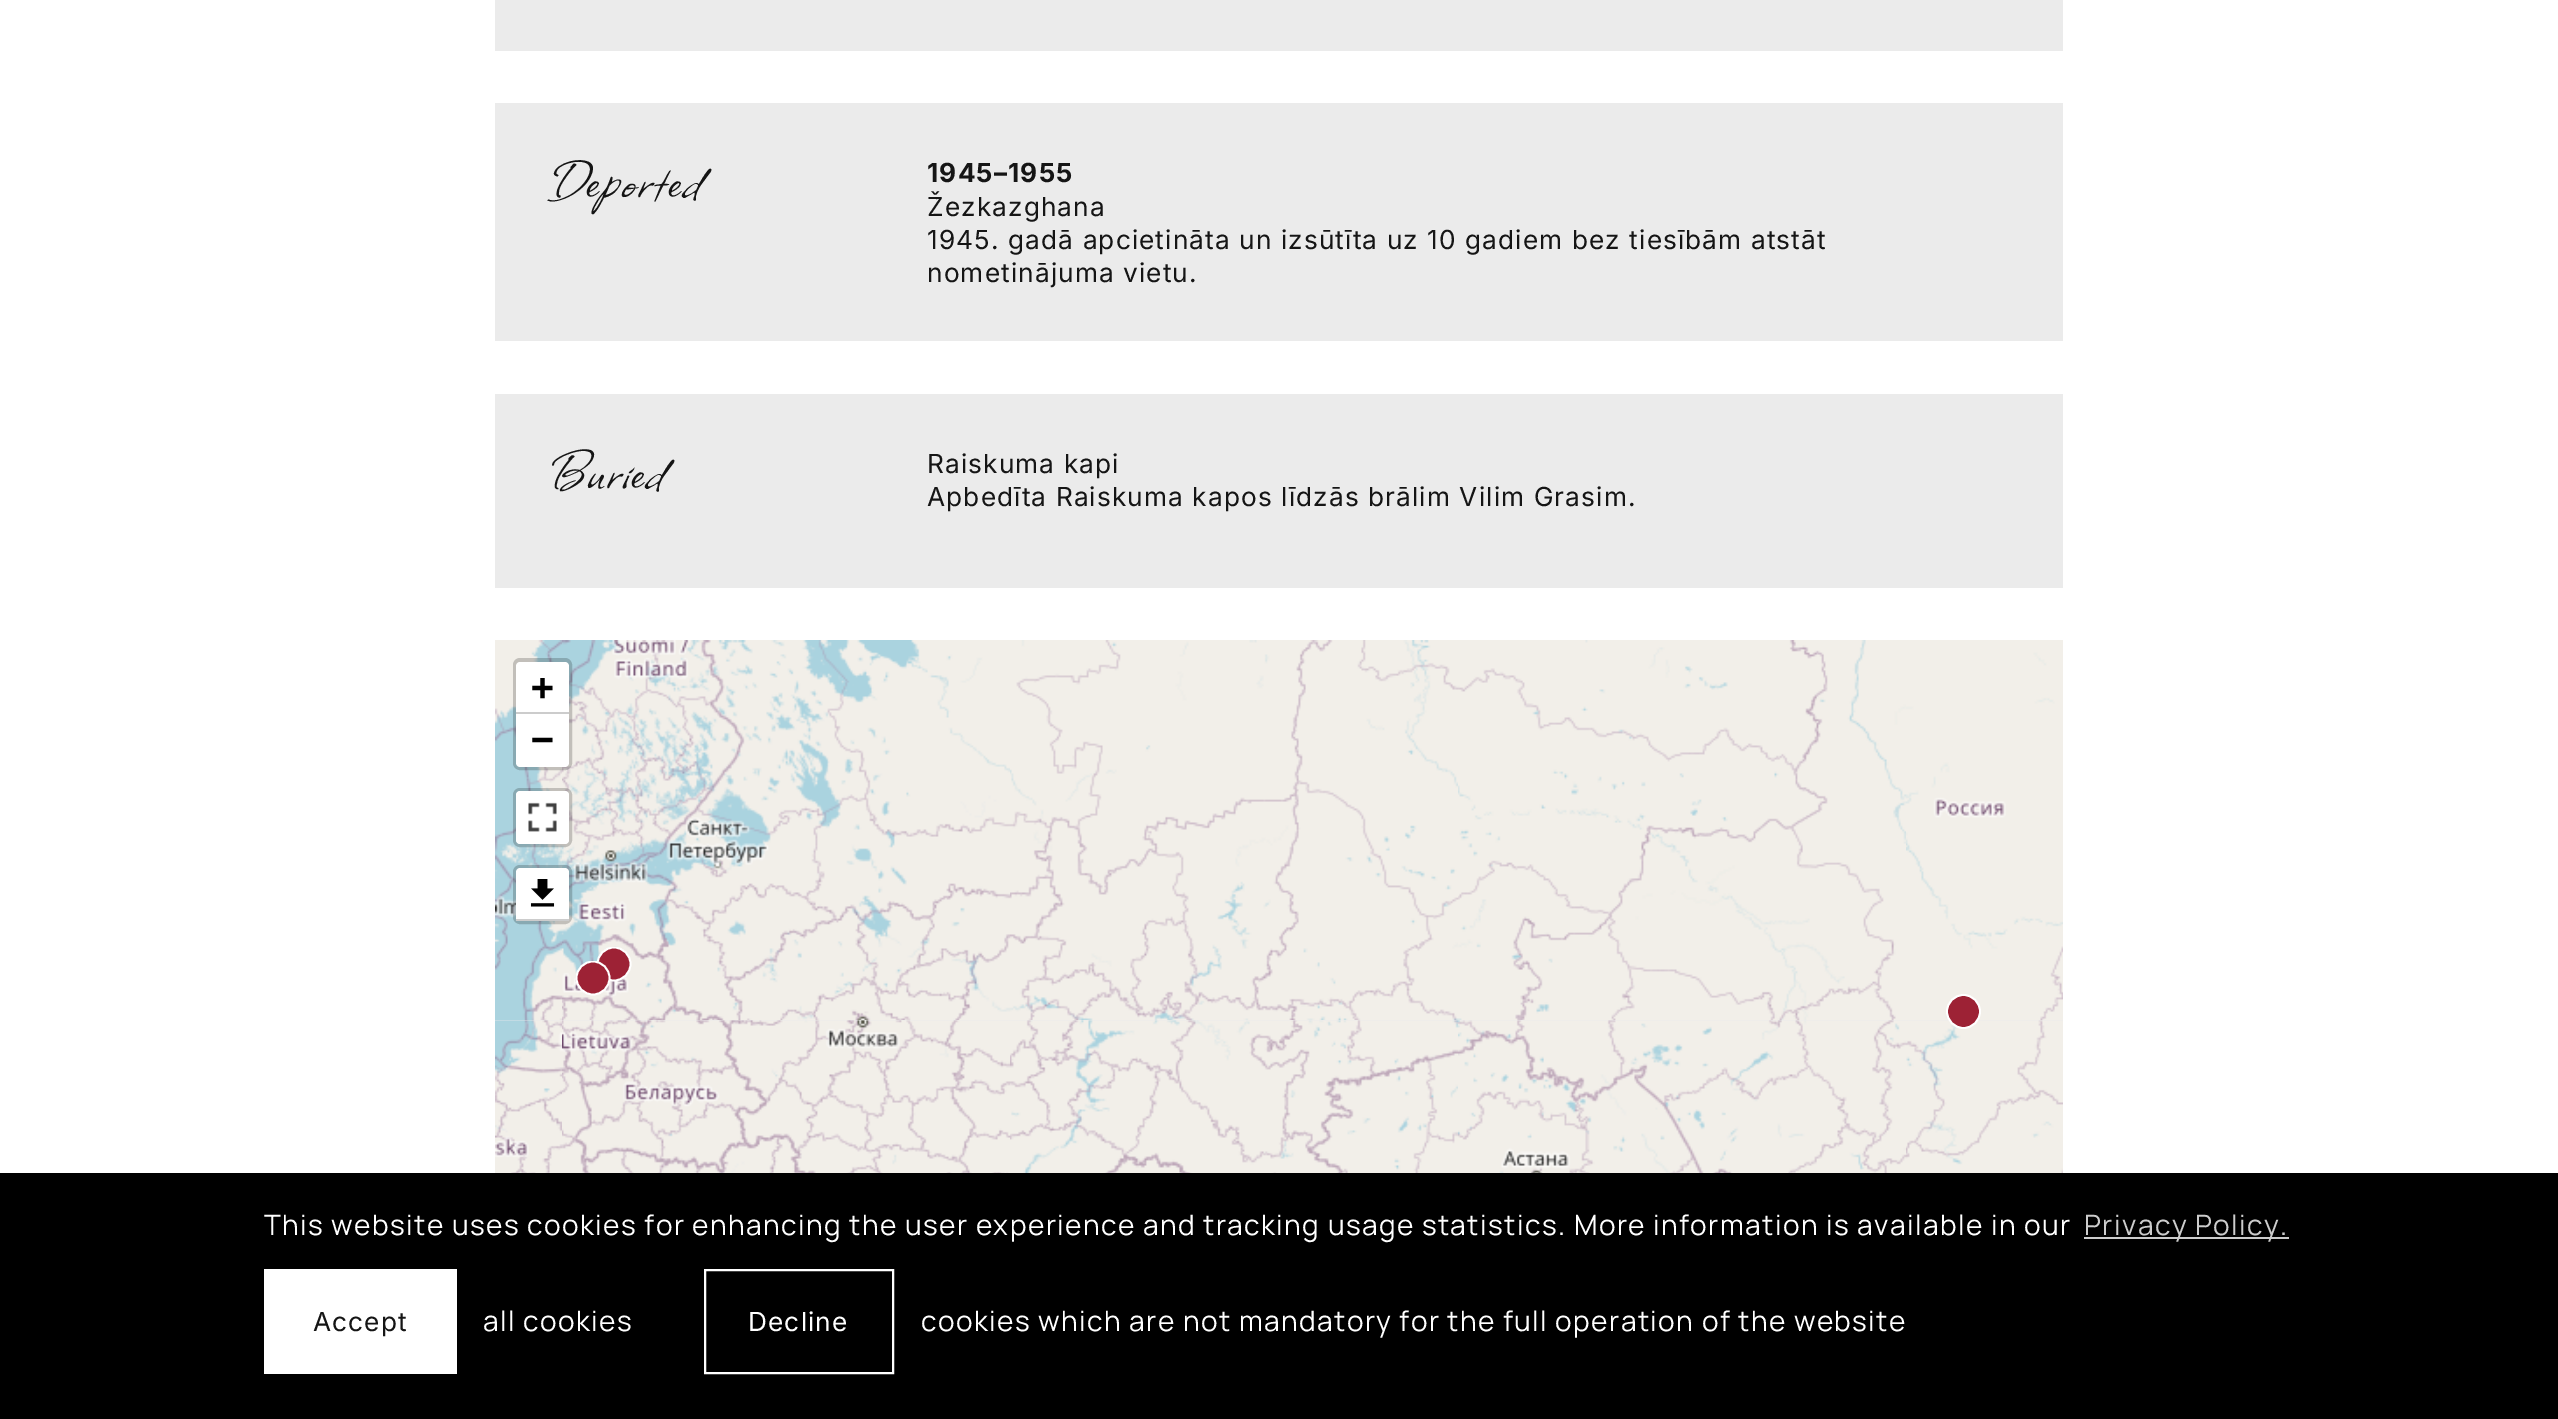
%!PS-Adobe-3.0
%%BoundingBox: 0 0 2558 1419
%%LanguageLevel: 3
%%Pages: 1
%%EndComments
%%BeginProlog
/setink { 3 { 255 div 3 1 roll } repeat setrgbcolor } def
/usefont { [ exch dup neg 0 0 3 -1 roll 0 0 ] selectfont } def
/fillbox { setink rectfill } def
/setalpha { dup .setfillconstantalpha .setstrokeconstantalpha } def
/disc { newpath 0 360 arc closepath } def
/rrect { 5 dict begin { /r /h /w /y /x } { exch def } forall
  x r add y moveto x w add y 2 copy h add r arct x w add y h add x 1 index r arct
  x y h add x y r arct x y 2 copy exch w add exch r arct closepath end } def
/drawimage { 5 dict begin { /h /w /y /x /name } { exch def } forall
  gsave x y translate w h scale
  w h 8 [w 0 0 h 0 0] name (r) file false 3 colorimage grestore end } def
%%EndProlog
%%BeginSetup
<< /PageSize [2558 1419] /PageUsesTransparency true >> setpagedevice
%%EndSetup
%%Page: 1 1
0 .pushpdf14devicefilter
0 1419 translate 1 -1 scale
4 setmiterlimit
0 0 2558 1419 255 255 255 fillbox
495 0 1568 51 235 235 235 fillbox
495 103 1568 238 235 235 235 fillbox
/Allison-Regular 63 usefont
21 21 21 setink
548 196 moveto 2.5 0 (Deported) ashow
/Inter-Bold 26.25 usefont
927 182 moveto 1.1 0 (1945–1955) ashow
/Inter-Regular 26.25 usefont
927 216 moveto 1.1 0 (Žezkazghana) ashow
927 249 moveto 1.1 0 (1945. gadā apcietināta un izsūtīta uz 10 gadiem bez tiesībām atstāt) ashow
927 282 moveto 1.1 0 (nometinājuma vietu.) ashow
495 394 1568 194 235 235 235 fillbox
/Allison-Regular 63 usefont
21 21 21 setink
548 487 moveto 2.5 0 (Buried) ashow
/Inter-Regular 26.25 usefont
927 473 moveto 1.1 0 (Raiskuma kapi) ashow
927 506 moveto 1.1 0 (Apbedīta Raiskuma kapos līdzās brālim Vilim Grasim.) ashow
495 1020 1568 1 235 235 235 fillbox
(assets/img1.rgb) 495 640 67 380 drawimage
(assets/img2.rgb) 562 640 448 380 drawimage
(assets/img3.rgb) 1010 640 448 380 drawimage
(assets/img4.rgb) 1458 640 448 380 drawimage
(assets/img5.rgb) 1906 640 157 380 drawimage
(assets/img6.rgb) 495 1020 67 153 drawimage
(assets/img7.rgb) 562 1020 448 153 drawimage
(assets/img8.rgb) 1010 1020 448 153 drawimage
(assets/img9.rgb) 1458 1020 448 153 drawimage
(assets/img10.rgb) 1906 1020 157 153 drawimage
157 34 53 setink
614 964 16.5 disc fill
gsave
597 947 35 35 rectclip
255 255 255 setink
1.8 setlinewidth
614 964 16.5 disc stroke
grestore
593 978 16.5 disc fill
gsave
576 961 35 35 rectclip
255 255 255 setink
1.8 setlinewidth
593 978 16.5 disc stroke
grestore
1963.5 1011.5 16.5 disc gsave fill grestore
255 255 255 setink
1.8 setlinewidth
stroke
0.2 setalpha
0 0 0 setink
4 setlinewidth
515 660 55 108 5 rrect stroke
1 setalpha
255 255 255 setink
520 662 moveto 565 662 lineto 567 662 569 664 569 666 curveto 569 714 lineto 516 714 lineto 516 666 lineto 516 664 518 662 520 662 curveto closepath fill
516 712 53 2 204 204 204 fillbox
/DejaVuSansMono-Bold 38 usefont
0 0 0 setink
531 700 moveto 1.45 0 (+) ashow
255 255 255 setink
516 714 moveto 569 714 lineto 569 763 lineto 569 765 567 767 565 767 curveto 520 767 lineto 518 767 516 765 516 763 curveto closepath fill
0 0 0 setink
531 752 moveto 1.45 0 (−) ashow
0.2 setalpha
515 790 55 55 5 rrect stroke
1 setalpha
255 255 255 setink
516 791 53 53 4 rrect fill
(assets/img11.rgb) 528 802 29 30 drawimage
0.2 setalpha
0 0 0 setink
515 867 55 55 5 rrect stroke
1 setalpha
255 255 255 setink
520 868 moveto 565 868 lineto 567 868 569 870 569 872 curveto 569 921 lineto 516 921 lineto 516 872 lineto 516 870 518 868 520 868 curveto closepath fill
(assets/img12.rgb) 530 879 25 28 drawimage
516 919 53 2 204 204 204 fillbox
0 1173 2558 246 0 0 0 fillbox
/Manrope-Regular 28 usefont
255 255 255 setink
264 1235 moveto 1.45 0 (This website uses cookies for enhancing the user experience and tracking usage statistics. More information is available in our) ashow
2084 1237 205 2 204 204 204 fillbox
2084 1235 moveto 1.45 0 (Privacy Policy.) ashow
264 1269 193 105 255 255 255 fillbox
/Inter-Regular 26.25 usefont
21 21 21 setink
313 1331 moveto 1.1 0 (Accept) ashow
/Manrope-Regular 28 usefont
255 255 255 setink
483 1331 moveto 1.45 0 (all cookies) ashow
2 setlinewidth
705 1270 188 103 rectstroke
/Inter-Regular 26.25 usefont
748 1331 moveto 1.1 0 (Decline) ashow
/Manrope-Regular 28 usefont
921 1331 moveto 1.45 0 (cookies which are not mandatory for the full operation of the website) ashow
.poppdf14devicefilter showpage
%%EOF
